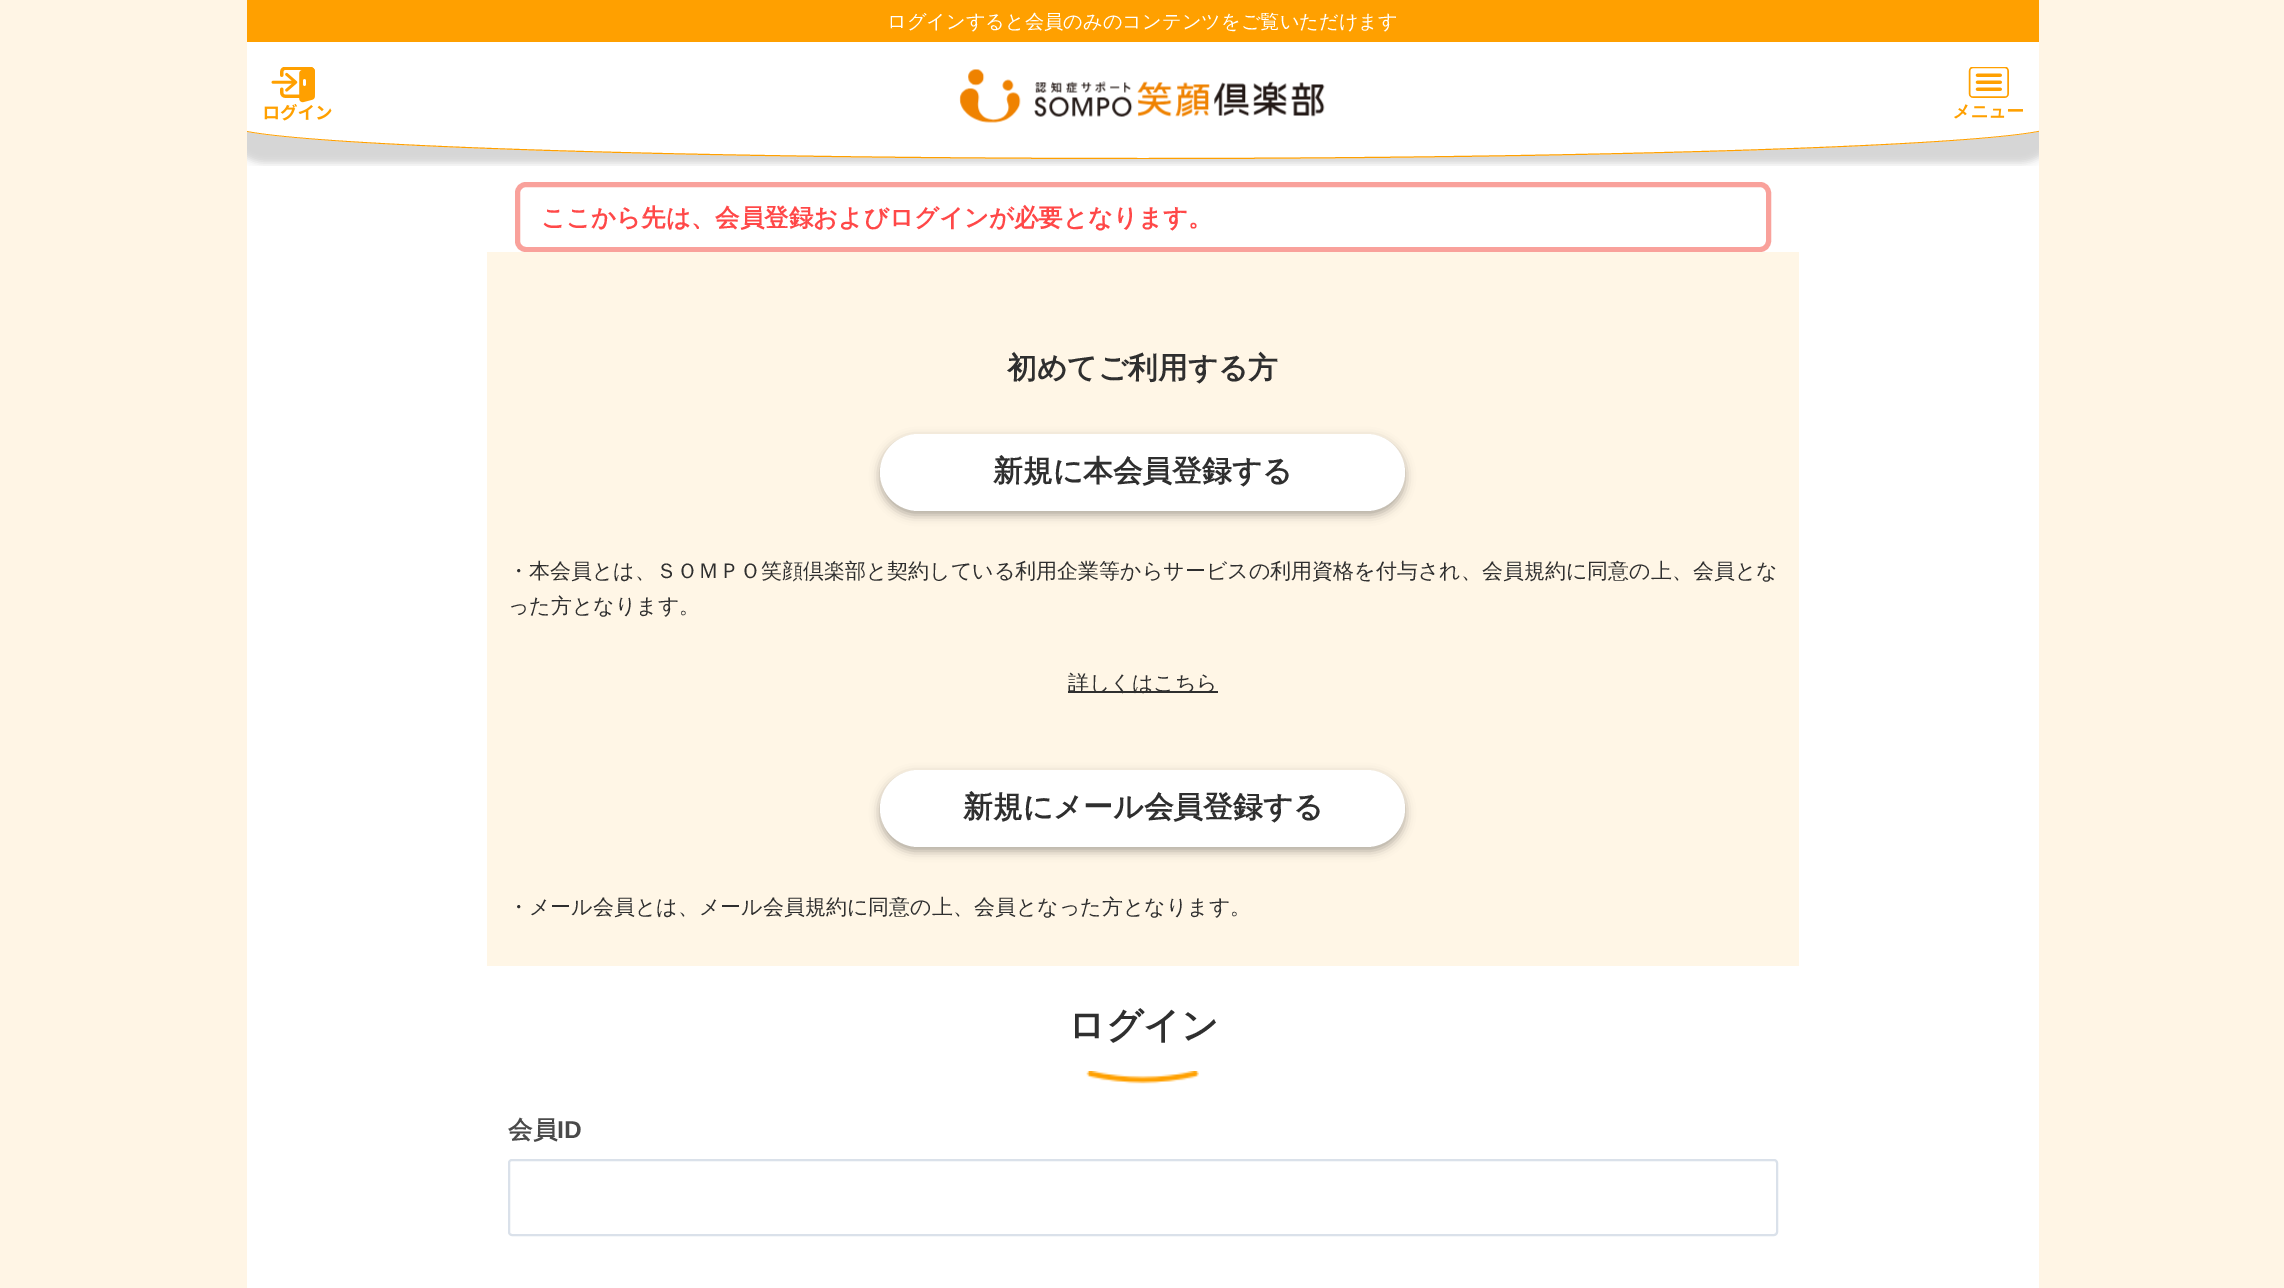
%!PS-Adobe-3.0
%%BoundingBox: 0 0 2284 1288
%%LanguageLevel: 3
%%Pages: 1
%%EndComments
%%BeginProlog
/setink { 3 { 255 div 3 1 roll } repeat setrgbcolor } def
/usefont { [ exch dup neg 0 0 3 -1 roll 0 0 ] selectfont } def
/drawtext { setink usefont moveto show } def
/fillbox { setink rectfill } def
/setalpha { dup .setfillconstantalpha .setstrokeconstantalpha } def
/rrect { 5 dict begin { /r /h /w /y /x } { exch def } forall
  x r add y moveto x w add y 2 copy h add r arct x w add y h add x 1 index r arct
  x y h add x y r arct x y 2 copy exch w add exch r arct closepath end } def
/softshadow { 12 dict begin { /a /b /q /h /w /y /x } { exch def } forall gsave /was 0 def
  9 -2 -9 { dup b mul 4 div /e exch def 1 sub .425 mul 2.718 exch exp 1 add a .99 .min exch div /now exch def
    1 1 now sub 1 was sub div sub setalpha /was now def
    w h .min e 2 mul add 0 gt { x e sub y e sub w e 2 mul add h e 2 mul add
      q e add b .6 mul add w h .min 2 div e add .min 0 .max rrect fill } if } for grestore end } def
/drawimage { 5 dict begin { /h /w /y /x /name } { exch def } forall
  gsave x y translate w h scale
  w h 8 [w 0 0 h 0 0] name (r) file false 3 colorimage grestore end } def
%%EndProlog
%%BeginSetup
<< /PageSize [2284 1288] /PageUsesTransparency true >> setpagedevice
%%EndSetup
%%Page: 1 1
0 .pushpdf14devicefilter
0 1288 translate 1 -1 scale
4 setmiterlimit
0 0 2284 1288 255 245 229 fillbox
247 0 1792 42 255 160 0 fillbox
(ログインすると会員のみのコンテンツをご覧いただけます) 887 28 /WenQuanYiZenHei-Medium 19.25 255 255 255 drawtext
247 131 1792 1157 255 255 255 fillbox
gsave
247 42 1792 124 rectclip
47 47 47 setink
229 46 1827 117 35 3.5 0.2 softshadow
grestore
gsave
247 42 1792 124 rectclip
229 42 moveto 2056 42 lineto 2056 125 lineto 2056 144 1647 159 1143 159 curveto 638 159 229 144 229 125 curveto closepath fill
255 160 0 setink
229 42 moveto 2056 42 lineto 2056 125 lineto 2056 144 1647 159 1143 159 curveto 638 159 229 144 229 125 curveto closepath 231 42 moveto 2054 42 lineto 2054 125 lineto 2054 143 1646 158 1143 158 curveto 639 158 231 143 231 125 curveto closepath eofill
grestore
(assets/img1.rgb) 264 67 68 54 drawimage
(assets/img2.rgb) 959 69 366 54 drawimage
(assets/img3.rgb) 1954 67 69 52 drawimage
249 161 155 setink
5 setlinewidth
517.5 184.5 1251 65 8.5 rrect stroke
(ここから先は、会員登録およびログインが必要となります。) 541 226 /WenQuanYiZenHei-Bold 24.5 255 72 72 drawtext
487 252 1312 714 255 246 230 fillbox
(初めてご利用する方) 1007 378 /WenQuanYiZenHei-Bold 29.75 47 47 47 drawtext
880 438 525 77 38.5 5 0.4 softshadow
255 255 255 setink
880 434 525 77 38.5 rrect fill
(新規に本会員登録する) 993 481 /WenQuanYiZenHei-Bold 29.75 47 47 47 drawtext
(・本会員とは、ＳＯＭＰＯ笑顔倶楽部と契約している利用企業等からサービスの利用資格を付与され、会員規約に同意の上、会員とな) 508 578 /WenQuanYiZenHei-Medium 21 47 47 47 drawtext
(った方となります。) 508 613 /WenQuanYiZenHei-Medium 21 47 47 47 drawtext
1068 691 150 2 47 47 47 fillbox
(詳しくはこちら) 1068 690 /WenQuanYiZenHei-Medium 21 47 47 47 drawtext
880 774 525 77 38.5 5 0.4 softshadow
255 255 255 setink
880 770 525 77 38.5 rrect fill
(新規にメール会員登録する) 963 817 /WenQuanYiZenHei-Bold 29.75 47 47 47 drawtext
(・メール会員とは、メール会員規約に同意の上、会員となった方となります。) 508 914 /WenQuanYiZenHei-Medium 21 47 47 47 drawtext
(ログイン) 1068 1038 /WenQuanYiZenHei-Bold 36.75 47 47 47 drawtext
(assets/img4.rgb) 1086 1071 113 13 drawimage
(会員) 508 1138 /WenQuanYiZenHei-Bold 24.5 74 74 74 drawtext
(ID) 557 1138 /LiberationSans-Bold 24.5 74 74 74 drawtext
218 225 234 setink
2 setlinewidth
509 1160 1268 75 3 rrect stroke
.poppdf14devicefilter showpage
%%EOF
